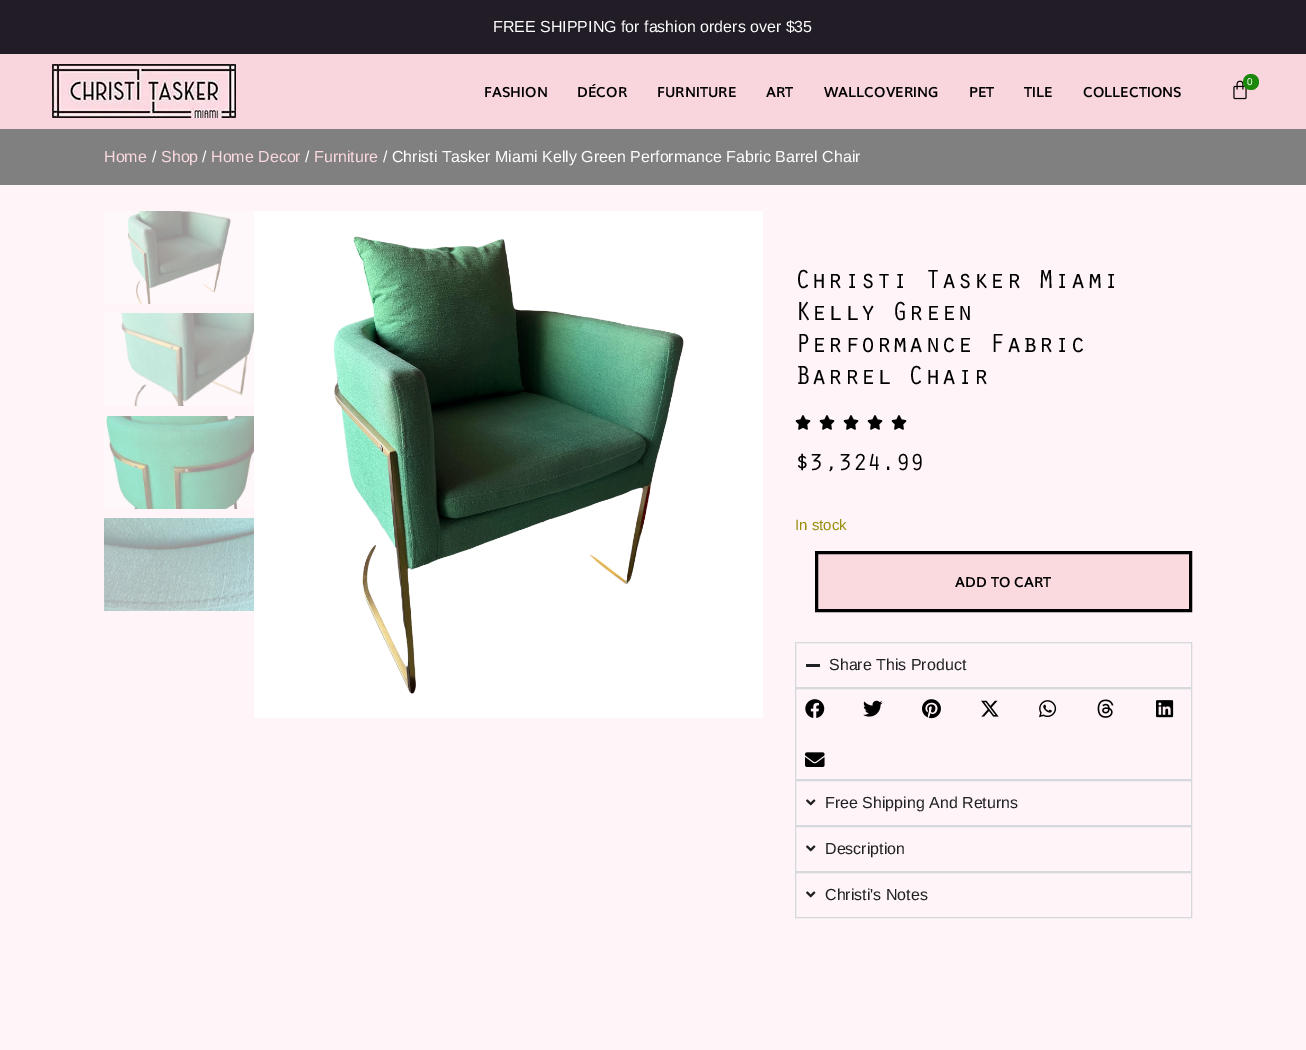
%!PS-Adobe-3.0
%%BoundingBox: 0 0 1306 1050
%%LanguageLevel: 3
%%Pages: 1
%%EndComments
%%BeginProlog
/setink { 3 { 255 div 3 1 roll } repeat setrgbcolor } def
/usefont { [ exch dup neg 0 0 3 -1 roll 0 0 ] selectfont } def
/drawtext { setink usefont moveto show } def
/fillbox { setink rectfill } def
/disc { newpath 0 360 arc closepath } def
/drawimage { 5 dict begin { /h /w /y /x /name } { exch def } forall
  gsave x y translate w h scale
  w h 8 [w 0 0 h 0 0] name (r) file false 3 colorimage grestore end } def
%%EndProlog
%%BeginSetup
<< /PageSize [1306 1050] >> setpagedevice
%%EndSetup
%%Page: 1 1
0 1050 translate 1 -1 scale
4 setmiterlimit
0 0 1306 1050 128 128 128 fillbox
0 0 1306 54 33 28 38 fillbox
(FREE SHIPPING for fashion orders over $35) 493 32 /LiberationSans-Regular 16 255 255 255 drawtext
0 54 1306 75 249 213 222 fillbox
(assets/img1.rgb) 52 64 184 54 drawimage
(assets/img2.rgb) 1233 80 14 20 drawimage
27 136 11 setink
1251 82 8 disc fill
/LiberationSans-Regular 10 usefont
255 255 255 setink
1247 85 moveto 2 0 (0) ashow
(FASHION) 484 97 /Muli-Bold 14 0 0 0 drawtext
(DÉCOR) 577 97 /Muli-Bold 14 0 0 0 drawtext
(FURNITURE) 657 97 /Muli-Bold 14 0 0 0 drawtext
(ART) 766 97 /Muli-Bold 14 0 0 0 drawtext
(WALLCOVERING) 824 97 /Muli-Bold 14 0 0 0 drawtext
(PET) 969 97 /Muli-Bold 14 0 0 0 drawtext
(TILE) 1024 97 /Muli-Bold 14 0 0 0 drawtext
(COLLECTIONS) 1083 97 /Muli-Bold 14 0 0 0 drawtext
(Home) 104 162 /LiberationSans-Regular 16 250 217 223 drawtext
(/) 152 162 /LiberationSans-Regular 16 255 255 255 drawtext
(Shop) 161 162 /LiberationSans-Regular 16 250 217 223 drawtext
(/) 202 162 /LiberationSans-Regular 16 255 255 255 drawtext
(Home Decor) 211 162 /LiberationSans-Regular 16 250 217 223 drawtext
(/) 305 162 /LiberationSans-Regular 16 255 255 255 drawtext
(Furniture) 314 162 /LiberationSans-Regular 16 250 217 223 drawtext
(/ Christi Tasker Miami Kelly Green Performance Fabric Barrel Chair) 383 162 /LiberationSans-Regular 16 255 255 255 drawtext
0 185 1306 865 255 244 247 fillbox
(assets/img3.rgb) 104 211 150 93 drawimage
(assets/img4.rgb) 104 313 150 93 drawimage
(assets/img5.rgb) 104 416 150 93 drawimage
(assets/img6.rgb) 104 518 150 93 drawimage
(assets/img7.rgb) 254 211 509 507 drawimage
(Christi Tasker Miami) 795 288 /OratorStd-Regular 27 0 0 0 drawtext
(Kelly Green) 795 320 /OratorStd-Regular 27 0 0 0 drawtext
(Performance Fabric) 795 352 /OratorStd-Regular 27 0 0 0 drawtext
(Barrel Chair) 795 384 /OratorStd-Regular 27 0 0 0 drawtext
(assets/img8.rgb) 795 415 16 15 drawimage
(assets/img9.rgb) 795 415 16 15 drawimage
(assets/img8.rgb) 819 415 16 15 drawimage
(assets/img9.rgb) 819 415 16 15 drawimage
(assets/img8.rgb) 843 415 16 15 drawimage
(assets/img9.rgb) 843 415 16 15 drawimage
(assets/img8.rgb) 867 415 16 15 drawimage
(assets/img9.rgb) 867 415 16 15 drawimage
(assets/img8.rgb) 891 415 16 15 drawimage
(assets/img9.rgb) 891 415 16 15 drawimage
($3,324.99) 795 470 /OratorStd-Regular 24 0 0 0 drawtext
(In stock) 795 530 /LiberationSans-Regular 15 149 142 9 drawtext
250 217 223 setink
816.5 552.5 moveto 1190.5 552.5 lineto 1190.5 610.5 lineto 816.5 610.5 lineto closepath gsave fill grestore
0 0 0 setink
3 setlinewidth
stroke
(ADD TO CART) 955 587 /Muli-Bold 14 0 0 0 drawtext
213 216 220 setink
1 setlinewidth
795.5 642.5 396 45 rectstroke
806 664 14 3 31 33 36 fillbox
(Share This Product) 829 670 /LiberationSans-Regular 16 31 33 36 drawtext
213 216 220 setink
795.5 688.5 396 91 rectstroke
(assets/img10.rgb) 805 699 20 19 drawimage
(assets/img11.rgb) 863 700 20 17 drawimage
(assets/img12.rgb) 922 699 19 20 drawimage
(assets/img13.rgb) 981 700 18 17 drawimage
(assets/img14.rgb) 1039 700 18 18 drawimage
(assets/img15.rgb) 1097 699 17 19 drawimage
(assets/img16.rgb) 1156 700 18 18 drawimage
(assets/img17.rgb) 805 752 20 15 drawimage
795.5 780.5 396 45 rectstroke
(assets/img18.rgb) 806 799 10 7 drawimage
(Free Shipping And Returns) 825 808 /LiberationSans-Regular 16 31 33 36 drawtext
213 216 220 setink
795.5 826.5 396 45 rectstroke
(assets/img18.rgb) 806 845 10 7 drawimage
(Description) 825 854 /LiberationSans-Regular 16 31 33 36 drawtext
213 216 220 setink
795.5 872.5 396 45 rectstroke
(assets/img18.rgb) 806 891 10 7 drawimage
(Christi's Notes) 825 900 /LiberationSans-Regular 16 31 33 36 drawtext
showpage
%%EOF
